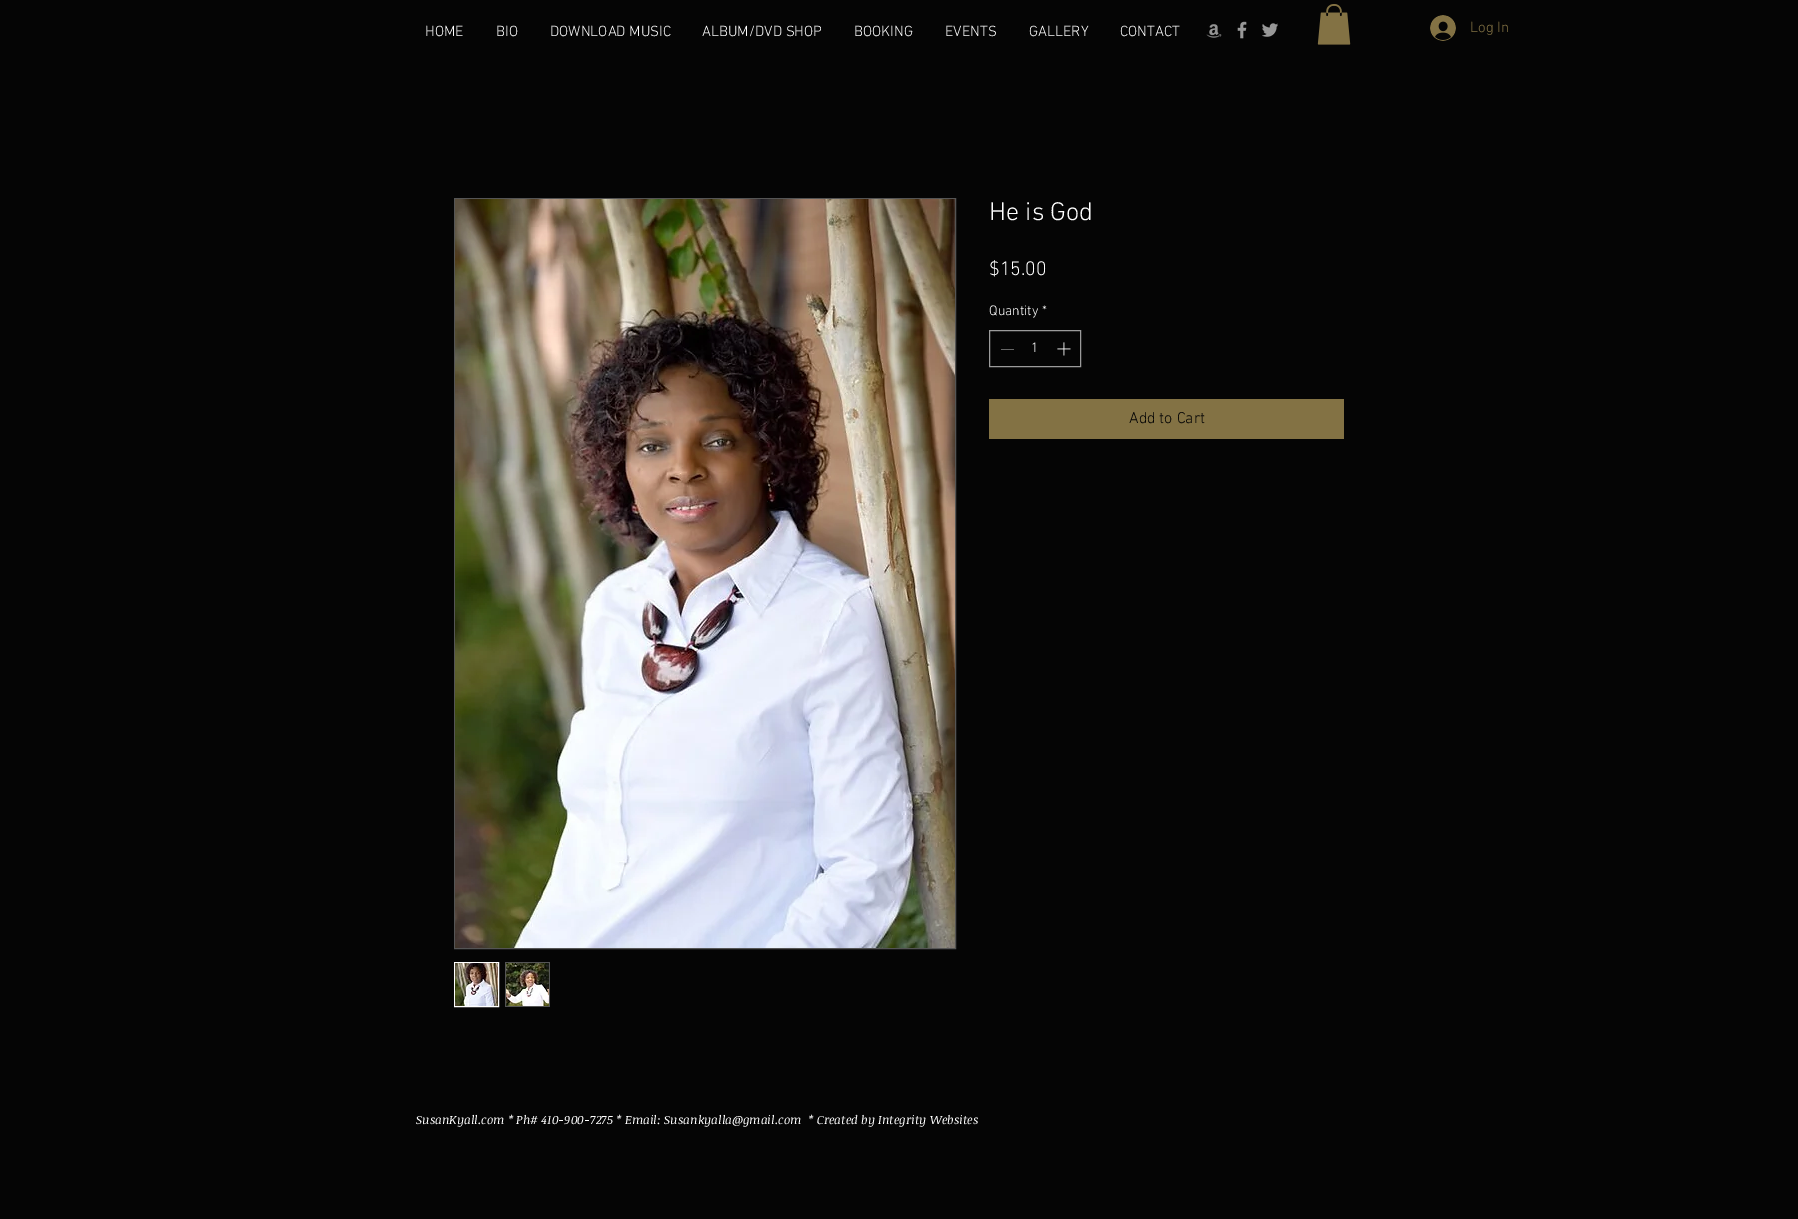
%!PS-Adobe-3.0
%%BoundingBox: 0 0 1798 1219
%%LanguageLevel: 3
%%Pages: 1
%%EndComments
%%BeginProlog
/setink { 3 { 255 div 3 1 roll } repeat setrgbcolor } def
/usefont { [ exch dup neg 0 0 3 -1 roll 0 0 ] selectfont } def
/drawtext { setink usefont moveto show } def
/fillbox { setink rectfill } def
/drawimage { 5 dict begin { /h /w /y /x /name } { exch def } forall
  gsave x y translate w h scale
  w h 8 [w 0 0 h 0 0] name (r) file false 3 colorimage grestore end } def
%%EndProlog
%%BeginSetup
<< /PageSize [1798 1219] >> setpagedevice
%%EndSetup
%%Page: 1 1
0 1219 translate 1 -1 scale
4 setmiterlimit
0 0 1798 1219 5 5 5 fillbox
(HOME) 425 36 /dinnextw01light-Light 15 255 255 255 drawtext
(BIO) 496 36 /dinnextw01light-Light 15 255 255 255 drawtext
(DOWNLOAD MUSIC) 550 36 /dinnextw01light-Light 15 255 255 255 drawtext
(ALBUM/DVD SHOP) 702 36 /dinnextw01light-Light 15 255 255 255 drawtext
(BOOKING) 854 36 /dinnextw01light-Light 15 255 255 255 drawtext
(EVENTS) 945 36 /dinnextw01light-Light 15 255 255 255 drawtext
(GALLERY) 1029 36 /dinnextw01light-Light 15 255 255 255 drawtext
(CONTACT) 1120 36 /dinnextw01light-Light 15 255 255 255 drawtext
(assets/img1.rgb) 1206 24 16 14 drawimage
(assets/img2.rgb) 1237 21 10 18 drawimage
(assets/img3.rgb) 1262 23 16 14 drawimage
(assets/img4.rgb) 1317 4 34 41 drawimage
(assets/img5.rgb) 1430 15 26 26 drawimage
(Log In) 1470 32 /dinnextw01light-Light 15 131 114 68 drawtext
85 85 85 setink
454.5 198.5 501 750 rectstroke
(assets/img6.rgb) 455 199 500 749 drawimage
255 255 255 setink
454.5 962.5 44 44 rectstroke
(assets/img7.rgb) 455 963 43 43 drawimage
505 962 45 45 85 85 85 fillbox
(assets/img8.rgb) 506 963 43 43 drawimage
(He is God) 989 220 /dinnextw01light-Light 26 255 255 255 drawtext
($15.00) 989 275 /dinnextw01light-Light 20 255 255 255 drawtext
(Quantity) 989 315 /dinnextw01light-Light 14 255 255 255 drawtext
(*) 1042 315 /dinnextw01light-Light 14 255 255 255 drawtext
155 155 155 setink
989.5 330.5 91 36 rectstroke
1001 349 13 1 102 102 102 fillbox
(1) 1031 352 /dinnextw01light-Light 14 255 255 255 drawtext
(assets/img9.rgb) 1057 342 14 14 drawimage
989 399 355 40 131 114 68 fillbox
(Add to Cart) 1129 423 /dinnextw01light-Light 16 5 5 5 drawtext
(SusanKyall.com * Ph# 410-900-7275 * Email: Susankyalla@gmail.com) 416 1124 /NoticiaText-Italic 12 255 255 255 drawtext
(* Created by Integrity Websites) 808 1124 /NoticiaText-Italic 12 255 255 255 drawtext
showpage
%%EOF
